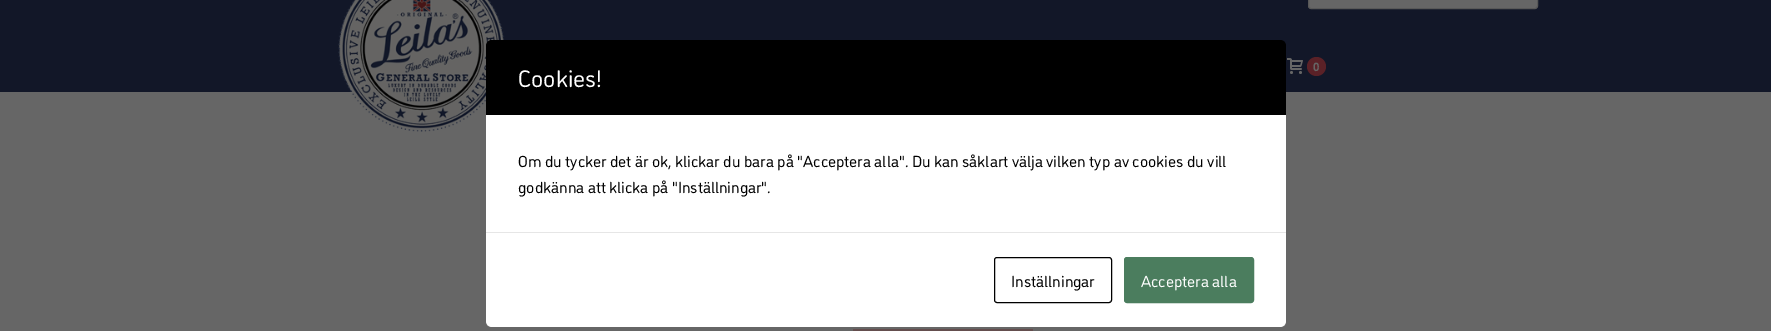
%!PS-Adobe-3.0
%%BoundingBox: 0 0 1771 331
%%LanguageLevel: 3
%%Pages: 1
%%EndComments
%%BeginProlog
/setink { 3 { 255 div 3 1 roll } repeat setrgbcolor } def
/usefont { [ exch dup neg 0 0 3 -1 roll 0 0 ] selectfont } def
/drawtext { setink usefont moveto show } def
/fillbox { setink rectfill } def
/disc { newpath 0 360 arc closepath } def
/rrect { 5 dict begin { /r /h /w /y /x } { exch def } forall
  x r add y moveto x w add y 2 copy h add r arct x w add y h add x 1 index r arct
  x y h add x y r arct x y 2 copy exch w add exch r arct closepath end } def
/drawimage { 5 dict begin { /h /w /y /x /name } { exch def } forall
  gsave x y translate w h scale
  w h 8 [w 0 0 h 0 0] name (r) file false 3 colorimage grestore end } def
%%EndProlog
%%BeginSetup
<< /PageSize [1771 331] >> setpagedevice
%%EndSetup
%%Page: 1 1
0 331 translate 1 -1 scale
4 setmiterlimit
0 0 1771 331 102 102 102 fillbox
0 0 1771 92 18 23 40 fillbox
102 102 102 setink
1308.5 -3.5 229 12 2.5 rrect gsave fill grestore
88 88 88 setink
stroke
(assets/img1.rgb) 338 0 167 132 drawimage
(assets/img2.rgb) 1287 58 16 16 drawimage
90 33 39 setink
1316.5 66.5 9.5 disc fill
(0) 1313 71 /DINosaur-Bold 12 102 102 102 drawtext
853 329 180 2 100 78 78 fillbox
0 0 0 setink
492 40 moveto 1280 40 lineto 1283.5 40 1286 42.5 1286 46 curveto 1286 115 lineto 486 115 lineto 486 46 lineto 486 42.5 488.5 40 492 40 curveto closepath fill
(Cookies!) 518 87 /DINosaur-Regular 24 255 255 255 drawtext
486 115 800 117 255 255 255 fillbox
(Om du tycker det är ok, klickar du bara på "Acceptera alla". Du kan såklart välja vilken typ av cookies du vill) 518 167 /DINosaur-Regular 16 0 0 0 drawtext
(godkänna att klicka på "Inställningar".) 518 193 /DINosaur-Regular 16 0 0 0 drawtext
255 255 255 setink
486 232 moveto 1286 232 lineto 1286 321 lineto 1286 324.5 1283.5 327 1280 327 curveto 492 327 lineto 488.5 327 486 324.5 486 321 curveto closepath fill
486 232 800 1 230 230 230 fillbox
0 0 0 setink
994.5 257.5 117 45 2.5 rrect stroke
(Inställningar) 1011 287 /DINosaur-Regular 16 0 0 0 drawtext
75 125 94 setink
1124.5 257.5 129 45 2.5 rrect gsave fill grestore
stroke
(Acceptera alla) 1141 287 /DINosaur-Regular 16 255 255 255 drawtext
showpage
%%EOF
